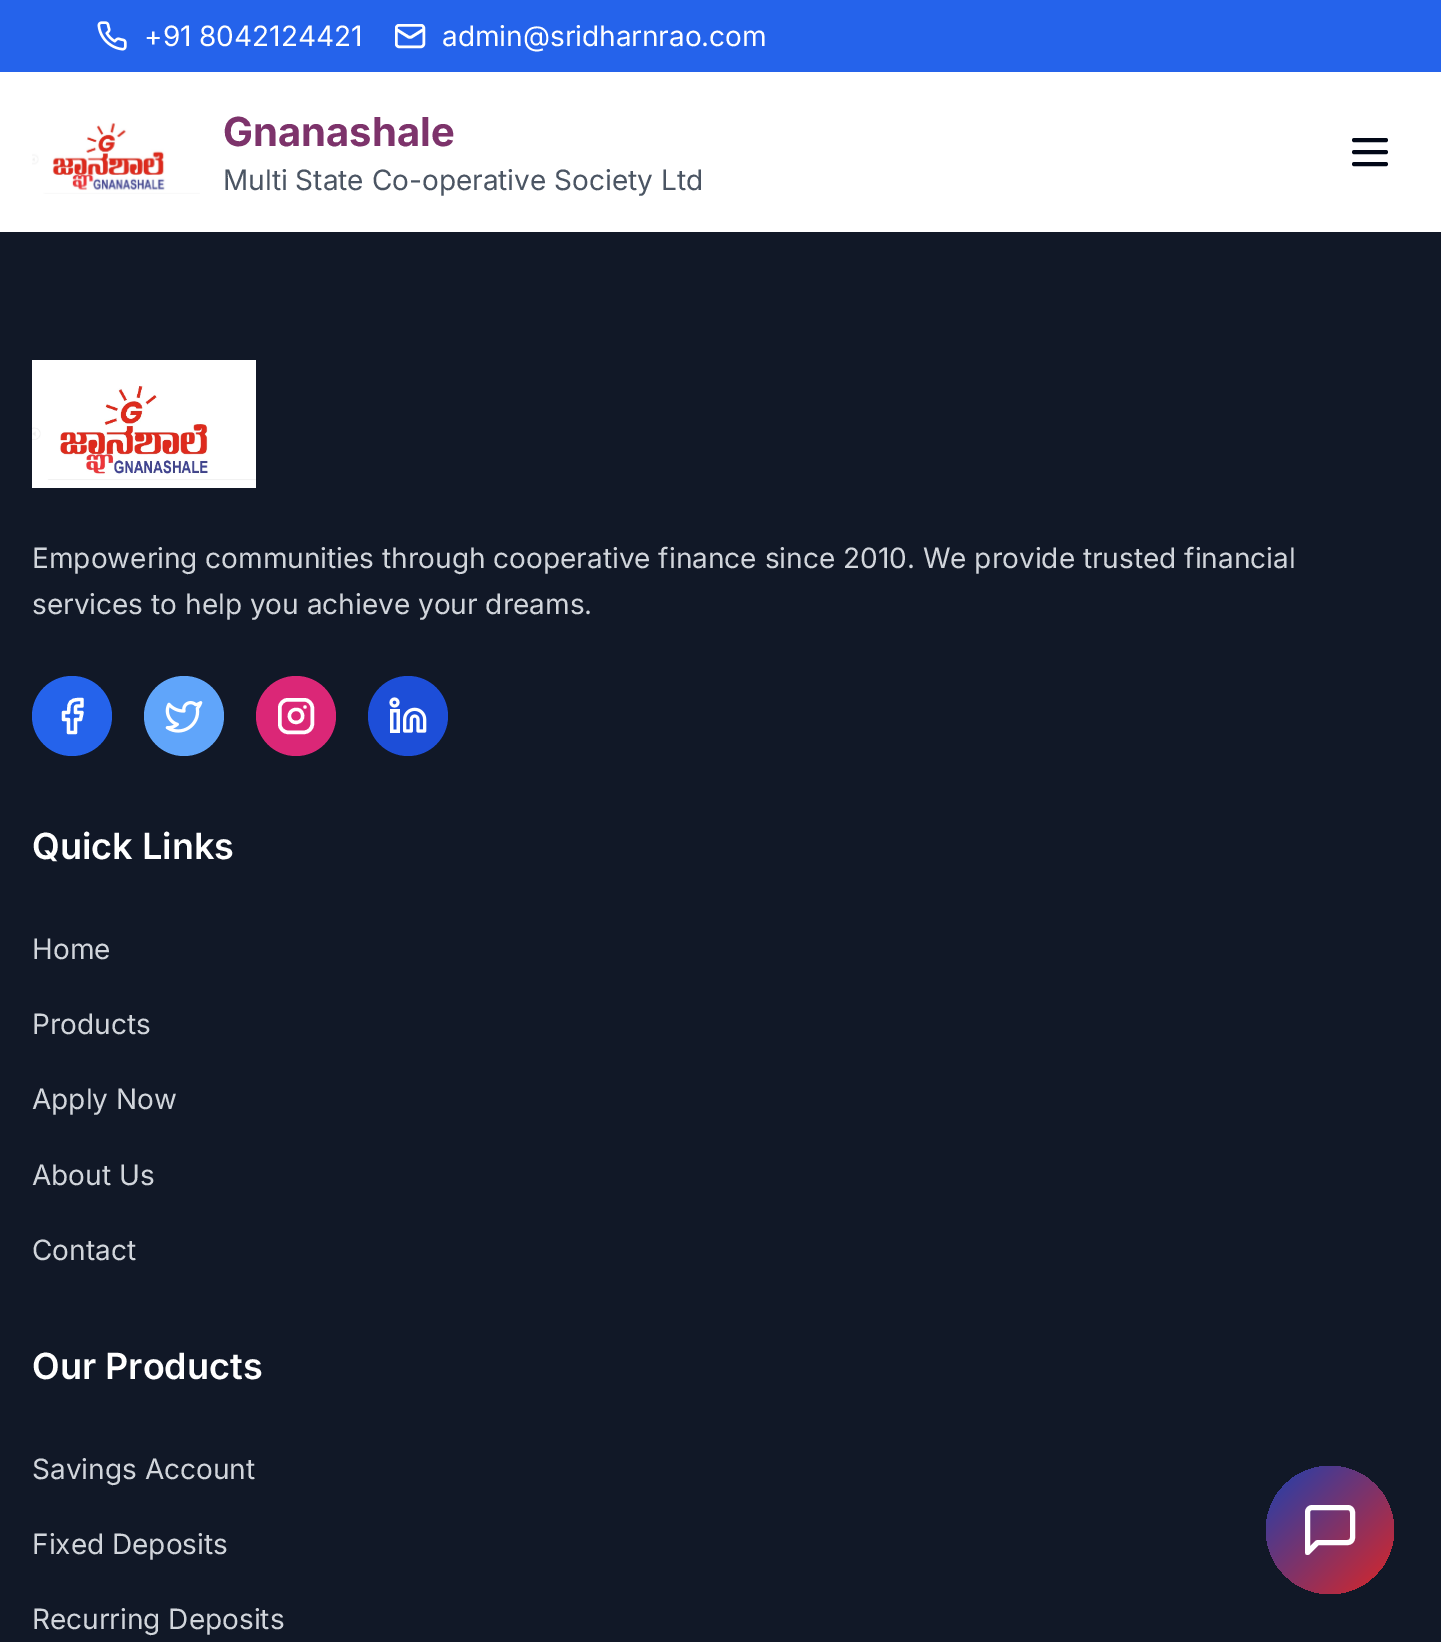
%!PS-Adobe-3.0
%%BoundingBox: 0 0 1441 1642
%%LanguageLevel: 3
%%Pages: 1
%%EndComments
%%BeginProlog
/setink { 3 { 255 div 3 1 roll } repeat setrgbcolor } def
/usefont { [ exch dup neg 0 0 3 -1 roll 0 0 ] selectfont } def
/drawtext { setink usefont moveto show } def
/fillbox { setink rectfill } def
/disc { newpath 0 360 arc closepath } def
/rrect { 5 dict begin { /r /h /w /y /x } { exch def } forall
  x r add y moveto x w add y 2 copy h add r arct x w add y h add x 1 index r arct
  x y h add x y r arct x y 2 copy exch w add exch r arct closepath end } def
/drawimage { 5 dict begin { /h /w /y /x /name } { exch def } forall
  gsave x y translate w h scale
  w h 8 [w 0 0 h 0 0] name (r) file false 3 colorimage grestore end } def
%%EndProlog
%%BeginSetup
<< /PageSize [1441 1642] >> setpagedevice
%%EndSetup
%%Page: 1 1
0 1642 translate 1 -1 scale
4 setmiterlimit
0 0 1441 1642 255 255 255 fillbox
0 0 1441 72 37 99 235 fillbox
(assets/img1.rgb) 97 21 30 30 drawimage
(+91 8042124421) 144 46 /Inter-Regular 28 255 255 255 drawtext
2.5 setlinewidth
396.25 25.25 27.5 21.5 2.75 rrect stroke
2.7 setlinewidth
1 setlinecap
1 setlinejoin
423.5 29.5 moveto 411.5 37 lineto 410.5 37.5 409.5 37.5 408.5 37 curveto 396.5 29.5 lineto stroke
(admin@sridharnrao.com) 442 46 /Inter-Regular 28 255 255 255 drawtext
(assets/img2.rgb) 32 122 168 72 drawimage
(Gnanashale) 223 146 /Inter-Bold 40 125 51 107 drawtext
(Multi State Co-operative Society Ltd) 223 190 /Inter-Regular 28 75 85 99 drawtext
2 8 23 setink
4 setlinewidth
1354 152 moveto 1386 152 lineto 1354 140 moveto 1386 140 lineto 1354 164 moveto 1386 164 lineto stroke
0 232 1441 1410 17 24 39 fillbox
(assets/img3.rgb) 32 360 224 128 drawimage
(Empowering communities through cooperative finance since 2010. We provide trusted financial) 32 568 /Inter-Regular 28 209 213 219 drawtext
(services to help you achieve your dreams.) 32 614 /Inter-Regular 28 209 213 219 drawtext
37 99 235 setink
72 716 40 disc fill
255 255 255 setink
3.3 setlinewidth
82 699.5 moveto 76.5 699.5 70 699 69 706 curveto 68.5 712.5 lineto 63.5 712.5 lineto 63.5 719.5 lineto 68.5 719.5 lineto 68.5 732.5 lineto 75.5 732.5 lineto 75.5 719.5 lineto 80.5 719.5 lineto 82 712.5 lineto 75.5 712.5 lineto 75.5 705 74.5 706 82 706 curveto closepath stroke
96 165 250 setink
184 716 40 disc fill
(assets/img4.rgb) 165 701 38 32 drawimage
219 39 119 setink
296 716 40 disc fill
255 255 255 setink
3.5 setlinewidth
0 setlinecap
0 setlinejoin
279.75 699.75 32.5 32.5 8.25 rrect stroke
3.3 setlinewidth
1 setlinecap
1 setlinejoin
302.5 715 moveto 304 723.5 291 725.5 289.5 717 curveto 288 708.5 301.5 706 302.5 715 curveto closepath 305 707 moveto 305 707 lineto stroke
29 78 216 setink
408 716 40 disc fill
(assets/img5.rgb) 389 697 38 36 drawimage
(Quick Links) 32 859 /Inter-SemiBold 36 255 255 255 drawtext
(Home) 32 959 /Inter-Regular 28 209 213 219 drawtext
(Products) 32 1034 /Inter-Regular 28 209 213 219 drawtext
(Apply Now) 32 1109 /Inter-Regular 28 209 213 219 drawtext
(About Us) 32 1185 /Inter-Regular 28 209 213 219 drawtext
(Contact) 32 1260 /Inter-Regular 28 209 213 219 drawtext
(Our Products) 32 1379 /Inter-SemiBold 36 255 255 255 drawtext
(Savings Account) 32 1479 /Inter-Regular 28 209 213 219 drawtext
(Fixed Deposits) 32 1554 /Inter-Regular 28 209 213 219 drawtext
(Recurring Deposits) 32 1629 /Inter-Regular 28 209 213 219 drawtext
gsave 1330 1530 64 disc clip newpath
<< /ShadingType 2 /ColorSpace /DeviceRGB /Coords [1266 1466 1394 1594] /Extend [true true] /Function << /FunctionType 2 /Domain [0 1] /C0 [0.118 0.251 0.686] /C1 [0.863 0.149 0.149] /N 1 >> >> shfill grestore
255 255 255 setink
5 setlinewidth
1352.5 1537.5 moveto 1352.5 1540.5 1350.5 1542.5 1347.5 1542.5 curveto 1317.5 1542.5 lineto 1307.5 1552.5 lineto 1307.5 1512.5 lineto 1307.5 1509.5 1309.5 1507.5 1312.5 1507.5 curveto 1347.5 1507.5 lineto 1350.5 1507.5 1352.5 1509.5 1352.5 1512.5 curveto closepath stroke
showpage
%%EOF
